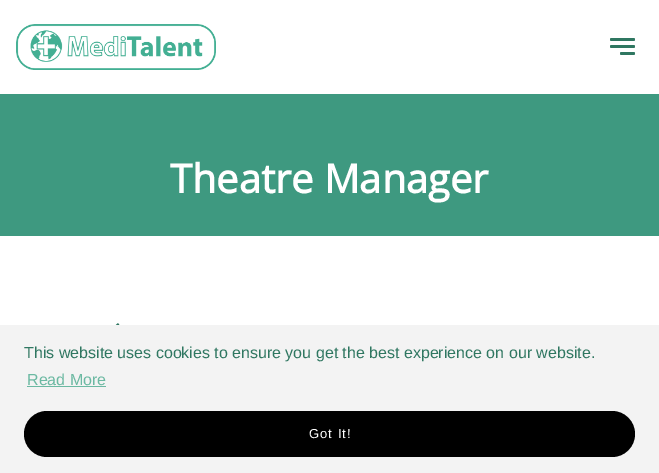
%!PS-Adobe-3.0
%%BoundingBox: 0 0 659 473
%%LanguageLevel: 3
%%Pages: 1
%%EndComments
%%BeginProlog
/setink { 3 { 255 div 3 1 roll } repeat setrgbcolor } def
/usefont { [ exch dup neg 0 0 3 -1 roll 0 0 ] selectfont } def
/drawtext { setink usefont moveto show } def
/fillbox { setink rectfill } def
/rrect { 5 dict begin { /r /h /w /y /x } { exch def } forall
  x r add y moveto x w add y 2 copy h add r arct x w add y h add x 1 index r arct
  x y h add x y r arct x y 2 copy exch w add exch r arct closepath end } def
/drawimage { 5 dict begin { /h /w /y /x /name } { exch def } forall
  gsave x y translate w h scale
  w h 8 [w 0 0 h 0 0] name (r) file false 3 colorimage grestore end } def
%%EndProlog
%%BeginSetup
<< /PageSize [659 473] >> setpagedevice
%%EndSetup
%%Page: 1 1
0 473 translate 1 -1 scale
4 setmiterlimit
0 0 659 473 255 255 255 fillbox
(assets/img1.rgb) 16 24 200 46 drawimage
47 119 97 setink
610 45 25 3 1.5 rrect fill
610 38 25 3 1.5 rrect fill
620 52 15 3 1.5 rrect fill
0 94 659 142 62 153 128 fillbox
(Theatre Manager) 170 193 /OpenSans-Bold 39.75 255 255 255 drawtext
(assets/img2.rgb) 115 323 5 2 drawimage
0 325 659 148 243 243 243 fillbox
(This website uses cookies to ensure you get the best experience on our website.) 24 358 /LiberationSans-Regular 16 47 119 97 drawtext
(Read More) 27 385 /LiberationSans-Regular 16 107 185 162 drawtext
27 386 79 1 107 185 162 fillbox
0 0 0 setink
24 411 611 46 23 rrect fill
/LiberationSans-Regular 13 usefont
255 255 255 setink
309 438 moveto 1 0 (Got It!) ashow
showpage
%%EOF
